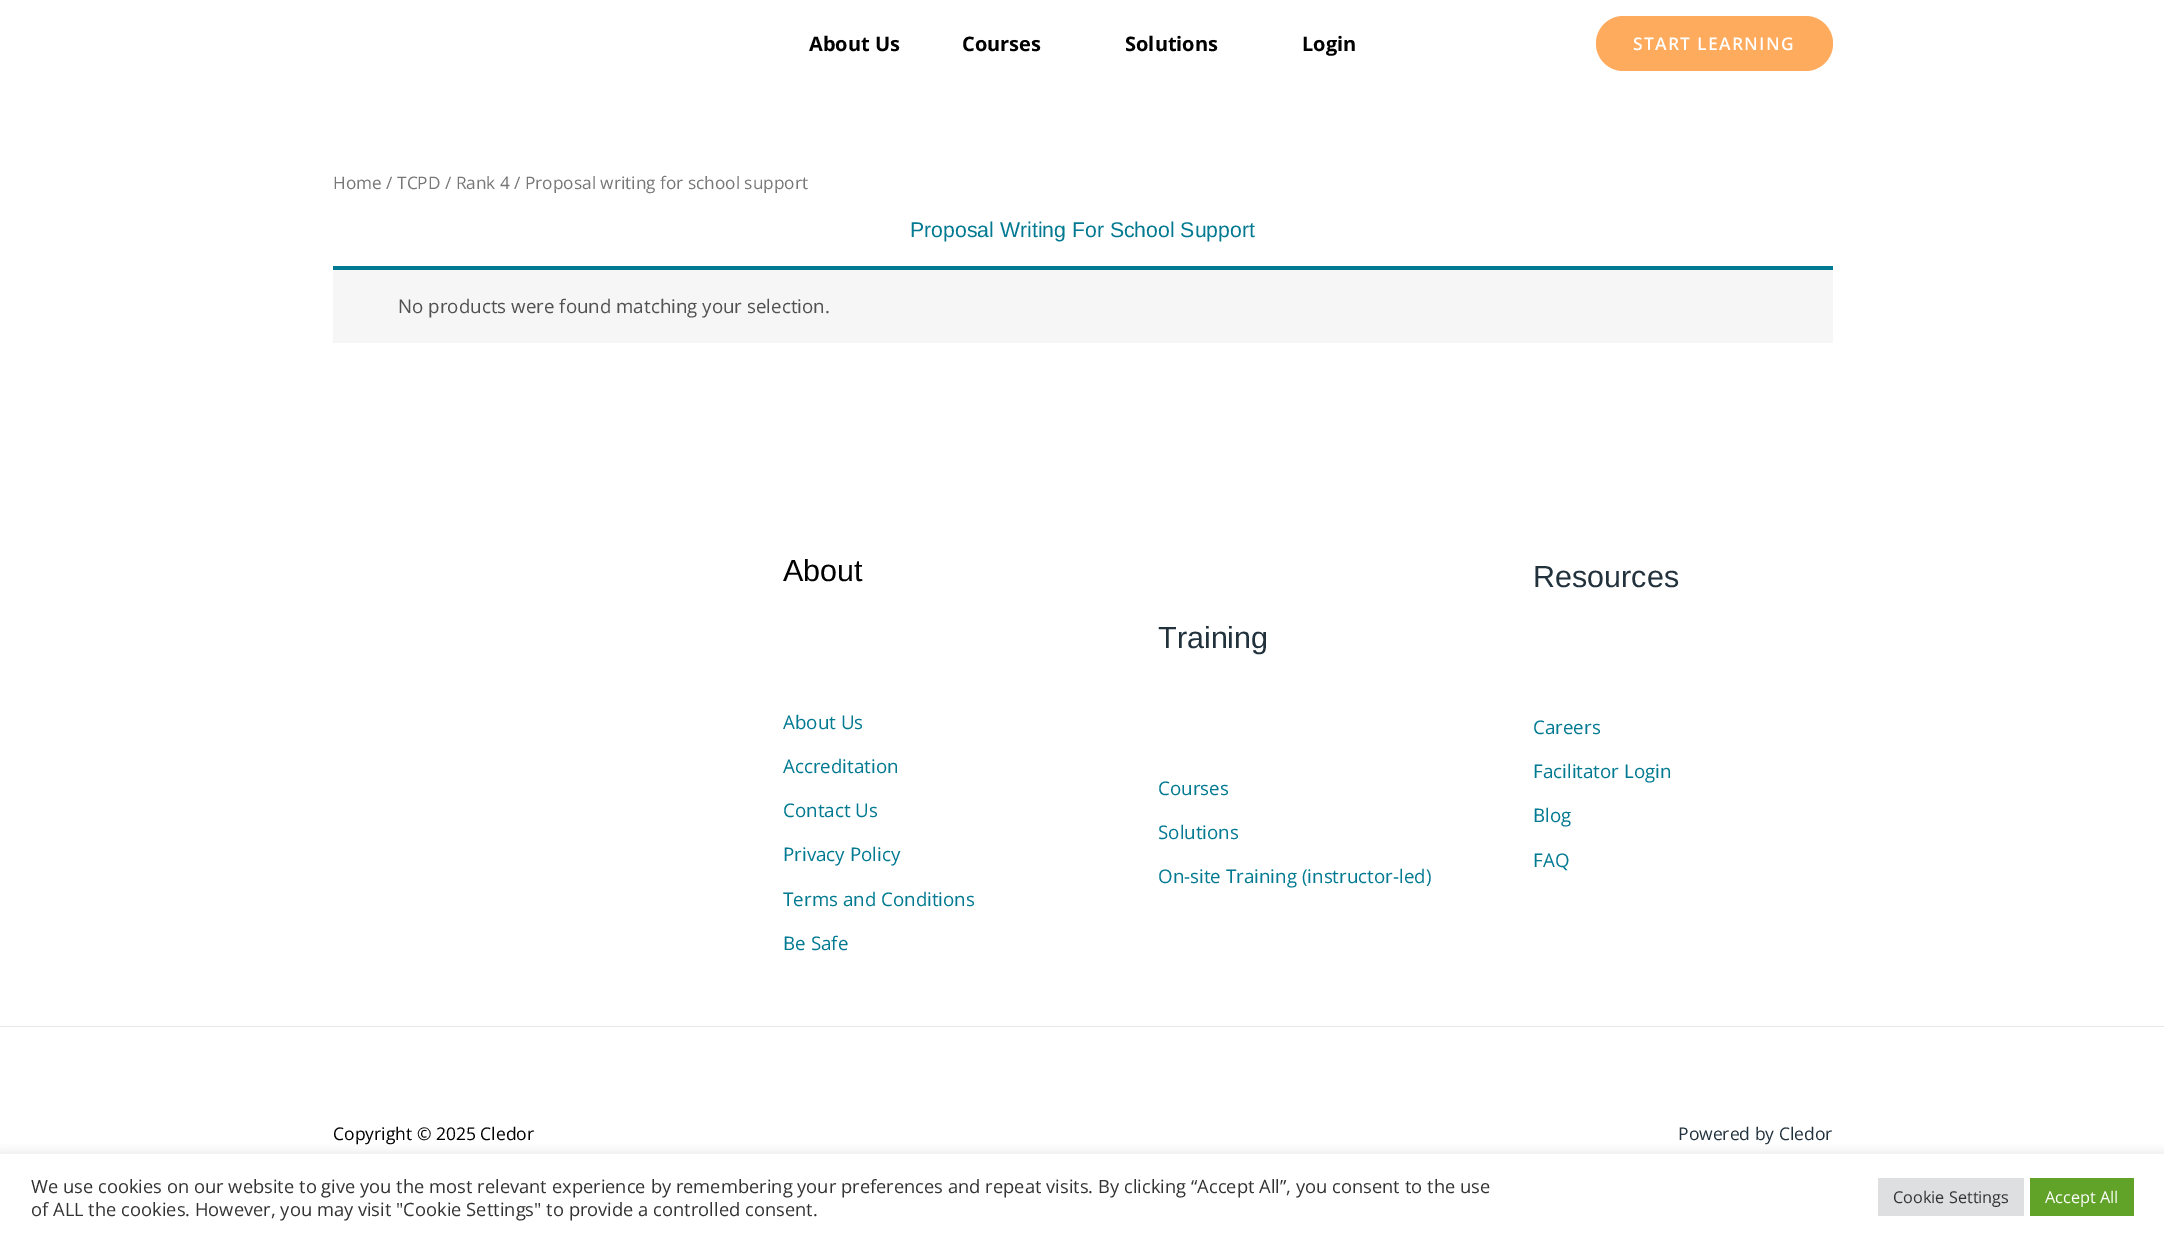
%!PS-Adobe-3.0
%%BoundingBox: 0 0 2164 1239
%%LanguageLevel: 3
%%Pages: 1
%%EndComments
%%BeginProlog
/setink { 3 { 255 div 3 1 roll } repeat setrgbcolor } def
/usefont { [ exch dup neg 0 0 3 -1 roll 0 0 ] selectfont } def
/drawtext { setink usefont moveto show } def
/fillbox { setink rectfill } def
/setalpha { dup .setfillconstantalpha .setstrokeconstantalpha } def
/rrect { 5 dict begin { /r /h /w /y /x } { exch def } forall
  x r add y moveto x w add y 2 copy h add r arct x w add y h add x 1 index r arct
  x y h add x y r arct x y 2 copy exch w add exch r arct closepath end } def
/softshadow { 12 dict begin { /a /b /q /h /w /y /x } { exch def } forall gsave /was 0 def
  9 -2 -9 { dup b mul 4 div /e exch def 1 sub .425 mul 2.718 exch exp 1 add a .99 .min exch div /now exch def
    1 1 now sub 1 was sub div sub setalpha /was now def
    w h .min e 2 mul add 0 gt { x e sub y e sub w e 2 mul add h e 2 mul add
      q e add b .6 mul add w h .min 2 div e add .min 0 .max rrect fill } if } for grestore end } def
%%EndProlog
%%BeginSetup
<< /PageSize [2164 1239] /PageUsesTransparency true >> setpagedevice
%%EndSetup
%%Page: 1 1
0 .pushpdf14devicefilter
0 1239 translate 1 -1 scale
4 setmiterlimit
0 0 2164 1239 255 255 255 fillbox
(About Us) 809 51 /OpenSans-Bold 20 0 0 0 drawtext
(Courses) 962 51 /OpenSans-Bold 20 0 0 0 drawtext
(Solutions) 1125 51 /OpenSans-Bold 20 0 0 0 drawtext
(Login) 1302 51 /OpenSans-Bold 20 0 0 0 drawtext
255 171 94 setink
1596 16 237 55 27.5 rrect fill
/OpenSans-SemiBold 17.5 usefont
255 255 255 setink
1633 50 moveto 1.25 0 (START LEARNING) ashow
(Home / TCPD / Rank 4 / Proposal writing for school support) 333 189 /OpenSans-Regular 17.25 119 119 119 drawtext
(Proposal Writing For School Support) 910 237 /LiberationSans-Regular 21.25 0 121 145 drawtext
333 270 1500 73 247 246 247 fillbox
333 266 1500 4 0 121 145 fillbox
(No products were found matching your selection.) 398 313 /OpenSans-Regular 18.75 81 81 81 drawtext
(About) 783 581 /LiberationSans-Regular 30.5 0 0 0 drawtext
(About Us) 783 729 /OpenSans-Regular 18.75 0 121 145 drawtext
(Accreditation) 783 773 /OpenSans-Regular 18.75 0 121 145 drawtext
(Contact Us) 783 817 /OpenSans-Regular 18.75 0 121 145 drawtext
(Privacy Policy) 783 861 /OpenSans-Regular 18.75 0 121 145 drawtext
(Terms and Conditions) 783 906 /OpenSans-Regular 18.75 0 121 145 drawtext
(Be Safe) 783 950 /OpenSans-Regular 18.75 0 121 145 drawtext
(Training) 1158 648 /LiberationSans-Regular 30.5 34 50 61 drawtext
(Courses) 1158 795 /OpenSans-Regular 18.75 0 121 145 drawtext
(Solutions) 1158 839 /OpenSans-Regular 18.75 0 121 145 drawtext
(On-site Training \(instructor-led\)) 1158 883 /OpenSans-Regular 18.75 0 121 145 drawtext
(Resources) 1533 587 /LiberationSans-Regular 30.5 34 50 61 drawtext
(Careers) 1533 734 /OpenSans-Regular 18.75 0 121 145 drawtext
(Facilitator Login) 1533 778 /OpenSans-Regular 18.75 0 121 145 drawtext
(Blog) 1533 822 /OpenSans-Regular 18.75 0 121 145 drawtext
(FAQ) 1533 867 /OpenSans-Regular 18.75 0 121 145 drawtext
0 1026 2164 1 231 231 231 fillbox
(Copyright © 2025 Cledor) 333 1140 /OpenSans-Regular 17.5 0 0 0 drawtext
(Powered by Cledor) 1678 1140 /OpenSans-Regular 17.5 34 50 61 drawtext
gsave
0 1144 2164 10 rectclip
172 171 171 setink
0 1153 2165 86 0 6 0.3 softshadow
grestore
(We use cookies on our website to give you the most relevant experience by remembering your preferences and repeat visits. By clicking “Accept All”, you consent to the use) 31 1193 /OpenSans-Regular 18.33 51 51 51 drawtext
(of ALL the cookies. However, you may visit "Cookie Settings" to provide a controlled consent.) 31 1216 /OpenSans-Regular 18.33 51 51 51 drawtext
1878 1178 146 38 222 223 224 fillbox
(Cookie Settings) 1893 1203 /OpenSans-Regular 16.25 51 51 51 drawtext
2030 1178 104 38 97 162 41 fillbox
(Accept All) 2045 1203 /OpenSans-Regular 16.25 255 255 255 drawtext
.poppdf14devicefilter showpage
%%EOF
